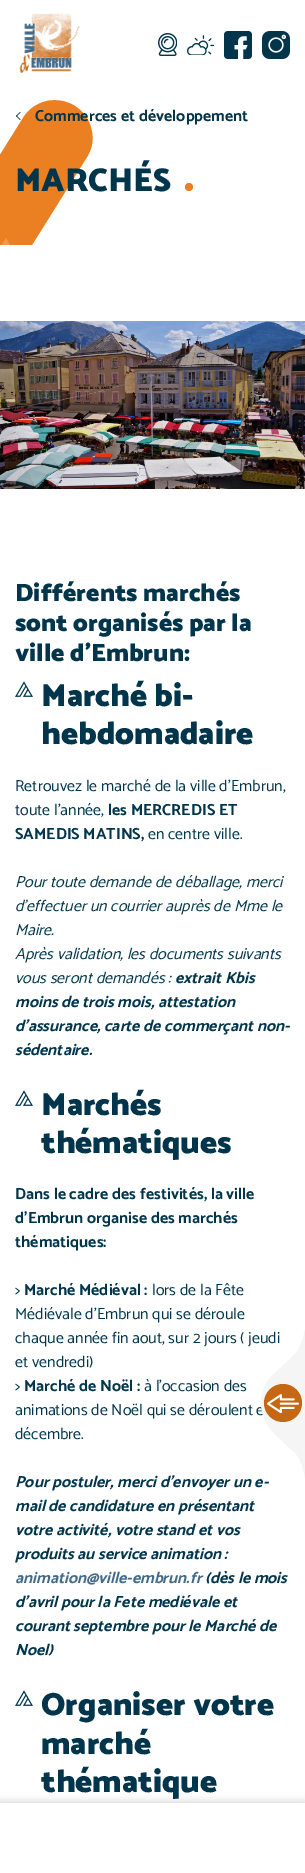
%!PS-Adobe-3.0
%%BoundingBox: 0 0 305 1873
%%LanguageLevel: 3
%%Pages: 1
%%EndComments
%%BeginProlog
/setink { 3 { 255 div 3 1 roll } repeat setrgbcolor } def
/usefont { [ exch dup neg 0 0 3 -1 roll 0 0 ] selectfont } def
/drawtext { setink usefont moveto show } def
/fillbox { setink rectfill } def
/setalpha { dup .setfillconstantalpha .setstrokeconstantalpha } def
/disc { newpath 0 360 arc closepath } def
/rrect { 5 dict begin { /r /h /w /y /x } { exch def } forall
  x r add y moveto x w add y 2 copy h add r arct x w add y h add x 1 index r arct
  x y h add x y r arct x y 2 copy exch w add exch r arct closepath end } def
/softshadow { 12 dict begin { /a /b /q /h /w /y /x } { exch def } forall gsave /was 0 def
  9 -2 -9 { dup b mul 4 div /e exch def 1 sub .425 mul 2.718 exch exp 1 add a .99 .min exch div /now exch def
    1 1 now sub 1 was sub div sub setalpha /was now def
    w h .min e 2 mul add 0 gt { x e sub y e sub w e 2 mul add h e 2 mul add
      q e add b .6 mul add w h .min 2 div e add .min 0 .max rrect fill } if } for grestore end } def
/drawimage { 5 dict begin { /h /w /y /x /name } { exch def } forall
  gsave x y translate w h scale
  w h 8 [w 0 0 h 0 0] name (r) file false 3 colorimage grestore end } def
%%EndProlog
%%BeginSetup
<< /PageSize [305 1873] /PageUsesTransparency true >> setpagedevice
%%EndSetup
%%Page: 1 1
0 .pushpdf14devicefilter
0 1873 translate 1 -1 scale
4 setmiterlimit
0 0 305 1873 255 255 255 fillbox
(assets/img1.rgb) 19 13 61 60 drawimage
(assets/img2.rgb) 158 33 19 23 drawimage
(assets/img3.rgb) 187 35 27 20 drawimage
(assets/img4.rgb) 224 31 28 28 drawimage
(assets/img5.rgb) 262 31 28 28 drawimage
0 0 0 setink
0 1803 305 70 0 5 0.2 softshadow
0 1803 305 70 255 255 255 fillbox
234 128 34 setink
-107 326 moveto 23 118 lineto 34 100 57 95 75 106 curveto 92 117 98 140 87 157 curveto -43 365 lineto -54 383 -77 388 -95 377 curveto -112 366 -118 343 -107 326 curveto closepath fill
0 53 75 setink
20 120 moveto 16 116 lineto 16.5 115.5 lineto 20.5 119.5 lineto closepath fill
16.5 116.5 moveto 16 116 lineto 20 112 lineto 20.5 112.5 lineto closepath fill
(Commerces et développement) 35 121 /Catamaran-Bold 16 0 53 75 drawtext
(MARCHÉS) 15 191 /Catamaran-Black 33 0 53 75 drawtext
234 128 34 setink
189 187 4 disc fill
0.2 setalpha
255 255 255 setink
-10 290 moveto -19 290 lineto 6 247 lineto 10 255 lineto -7 285 lineto closepath 20 263 moveto 6 238 lineto -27 294 lineto -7 294 lineto 13 259 lineto 17 267 lineto 2 294 lineto 38 294 lineto closepath 11 287 moveto 20 272 lineto 30 290 lineto 9 290 lineto closepath fill
1 setalpha
0 245 32 51 255 255 255 fillbox
(assets/img6.rgb) 0 321 305 168 drawimage
(Différents marchés) 15 601 /Catamaran-Black 25 0 53 75 drawtext
(sont organisés par la) 15 631 /Catamaran-Black 25 0 53 75 drawtext
(ville d'Embrun:) 15 661 /Catamaran-Black 25 0 53 75 drawtext
(assets/img7.rgb) 15 681 18 16 drawimage
(Marché bi-) 41 706 /Catamaran-Black 32 0 53 75 drawtext
(hebdomadaire) 41 744 /Catamaran-Black 32 0 53 75 drawtext
(Retrouvez le marché de la ville d'Embrun,) 15 791 /Catamaran-Regular 16 0 53 75 drawtext
(toute l'année,) 15 815 /Catamaran-Regular 16 0 53 75 drawtext
(les MERCREDIS ET) 108 815 /Catamaran-Bold 16 0 53 75 drawtext
(SAMEDIS MATINS,) 15 839 /Catamaran-Bold 16 0 53 75 drawtext
(en centre ville.) 148 839 /Catamaran-Regular 16 0 53 75 drawtext
(Pour toute demande de déballage, merci) 15 887 /Catamaran-Italic 16 0 53 75 drawtext
(d'effectuer un courrier auprès de Mme le) 15 911 /Catamaran-Italic 16 0 53 75 drawtext
(Maire.) 15 935 /Catamaran-Italic 16 0 53 75 drawtext
(Après validation, les documents suivants) 15 959 /Catamaran-Italic 16 0 53 75 drawtext
(vous seront demandés :) 15 983 /Catamaran-Italic 16 0 53 75 drawtext
(extrait Kbis) 175 983 /Catamaran-BoldItalic 16 0 53 75 drawtext
(moins de trois mois, attestation) 15 1007 /Catamaran-BoldItalic 16 0 53 75 drawtext
(d’assurance, carte de commerçant non-) 15 1031 /Catamaran-BoldItalic 16 0 53 75 drawtext
(sédentaire.) 15 1055 /Catamaran-BoldItalic 16 0 53 75 drawtext
(assets/img7.rgb) 15 1090 18 16 drawimage
(Marchés) 41 1115 /Catamaran-Black 32 0 53 75 drawtext
(thématiques) 41 1153 /Catamaran-Black 32 0 53 75 drawtext
(Dans le cadre des festivités, la ville) 15 1199 /Catamaran-Bold 16 0 53 75 drawtext
(d'Embrun organise des marchés) 15 1223 /Catamaran-Bold 16 0 53 75 drawtext
(thématiques:) 15 1247 /Catamaran-Bold 16 0 53 75 drawtext
(>) 15 1295 /Catamaran-Regular 16 0 53 75 drawtext
(Marché Médiéval :) 24 1295 /Catamaran-Bold 16 0 53 75 drawtext
(lors de la Fête) 152 1295 /Catamaran-Regular 16 0 53 75 drawtext
(Médiévale d'Embrun qui se déroule) 15 1319 /Catamaran-Regular 16 0 53 75 drawtext
(chaque année fin aout, sur 2 jours \( jeudi) 15 1343 /Catamaran-Regular 16 0 53 75 drawtext
(et vendredi\)) 15 1367 /Catamaran-Regular 16 0 53 75 drawtext
(>) 15 1391 /Catamaran-Regular 16 0 53 75 drawtext
(Marché de Noël :) 24 1391 /Catamaran-Bold 16 0 53 75 drawtext
(à l'occasion des) 144 1391 /Catamaran-Regular 16 0 53 75 drawtext
(animations de Noël qui se déroulent e) 15 1415 /Catamaran-Regular 16 0 53 75 drawtext
(décembre.) 15 1439 /Catamaran-Regular 16 0 53 75 drawtext
(Pour postuler, merci d'envoyer un e-) 15 1487 /Catamaran-BoldItalic 16 0 53 75 drawtext
(mail de candidature en présentant) 15 1511 /Catamaran-BoldItalic 16 0 53 75 drawtext
(votre activité, votre stand et vos) 15 1535 /Catamaran-BoldItalic 16 0 53 75 drawtext
(produits au service animation :) 15 1559 /Catamaran-BoldItalic 16 0 53 75 drawtext
(animation@ville-embrun.fr) 15 1583 /Catamaran-BoldItalic 16 67 107 137 drawtext
(\(dès le mois) 205 1583 /Catamaran-BoldItalic 16 0 53 75 drawtext
(d'avril pour la Fete mediévale et) 15 1607 /Catamaran-BoldItalic 16 0 53 75 drawtext
(courant septembre pour le Marché de) 15 1631 /Catamaran-BoldItalic 16 0 53 75 drawtext
(Noel\)) 15 1655 /Catamaran-BoldItalic 16 0 53 75 drawtext
(assets/img7.rgb) 15 1690 18 16 drawimage
(Organiser votre) 41 1715 /Catamaran-Black 32 0 53 75 drawtext
(marché) 41 1754 /Catamaran-Black 32 0 53 75 drawtext
(thématique) 41 1792 /Catamaran-Black 32 0 53 75 drawtext
245 245 245 setink
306 1485 moveto 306 1321 lineto 305 1332 303 1342 297 1351 curveto 289 1360 lineto 275 1373 261 1381 261 1403 curveto 261 1418 269 1429 279 1438 curveto 289 1448 lineto 292 1451 296 1453 298 1457 curveto 303 1465 305 1476 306 1485 curveto closepath fill
198 103 19 setink
283 1403 19 disc fill
(assets/img8.rgb) 267 1394 32 19 drawimage
.poppdf14devicefilter showpage
%%EOF
